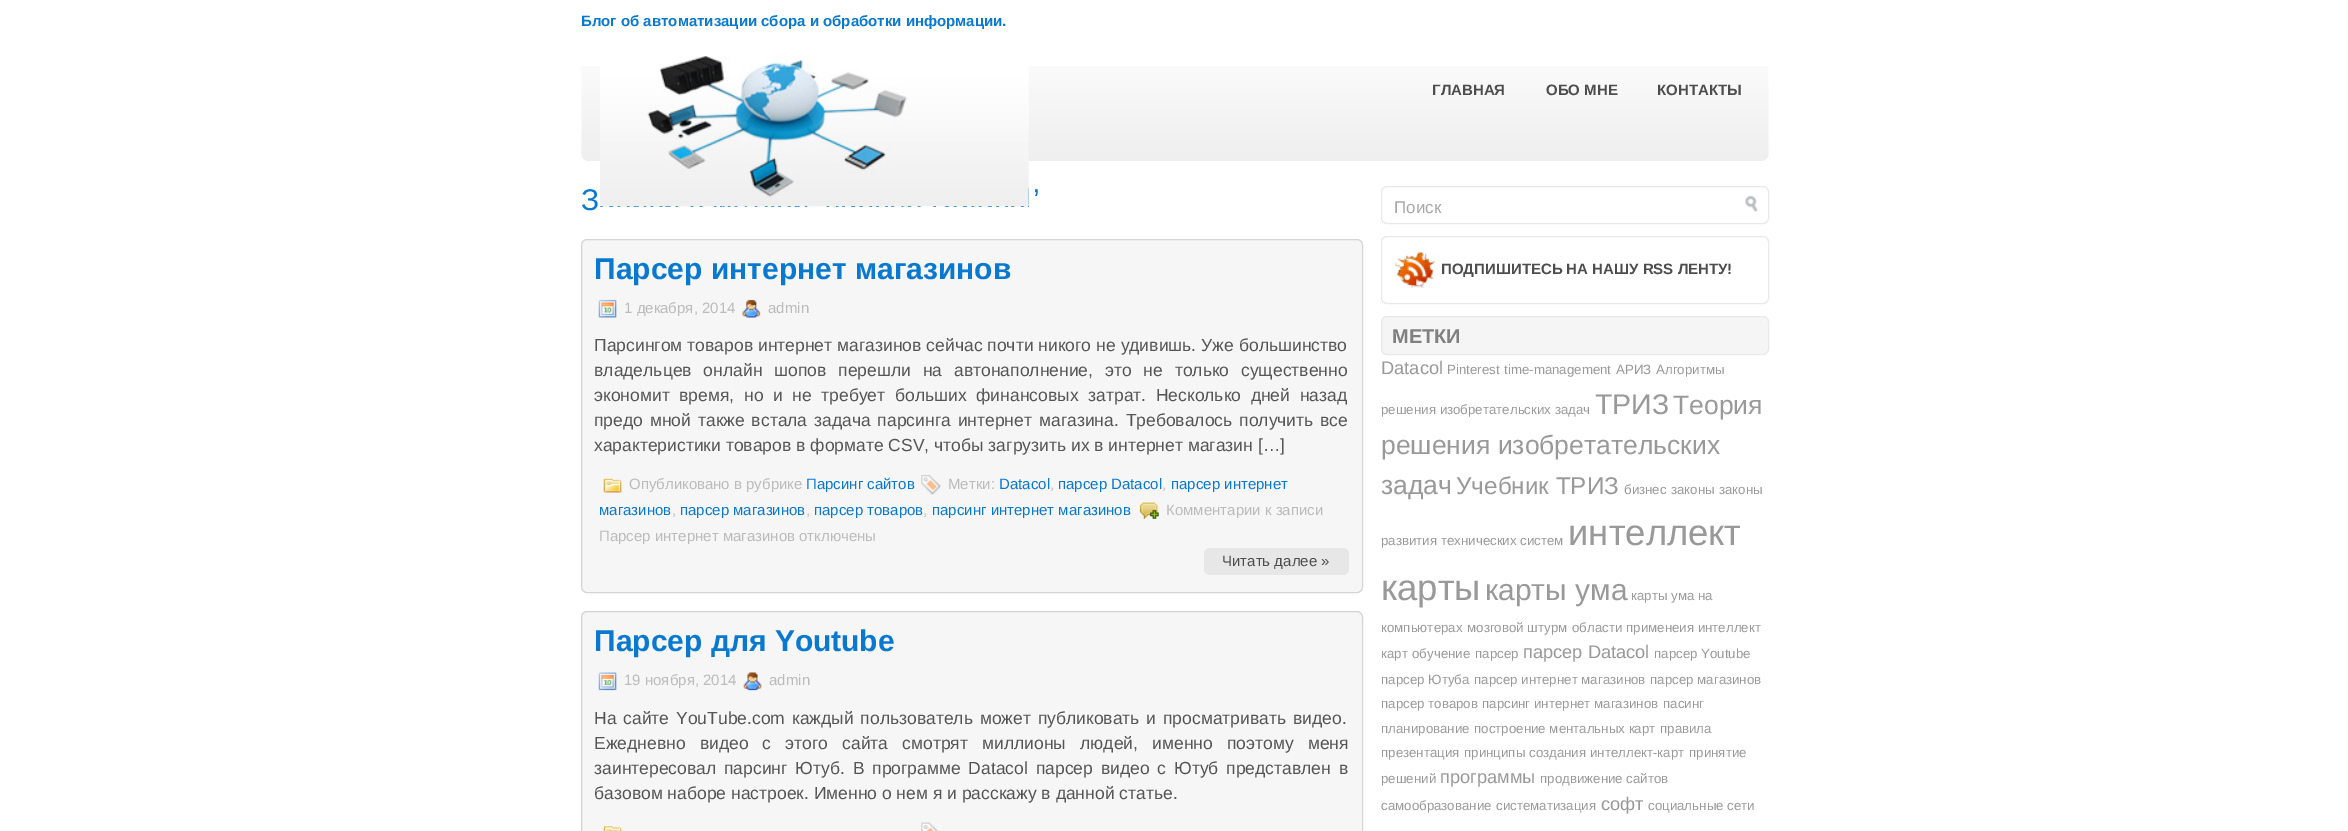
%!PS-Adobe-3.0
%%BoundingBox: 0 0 2348 831
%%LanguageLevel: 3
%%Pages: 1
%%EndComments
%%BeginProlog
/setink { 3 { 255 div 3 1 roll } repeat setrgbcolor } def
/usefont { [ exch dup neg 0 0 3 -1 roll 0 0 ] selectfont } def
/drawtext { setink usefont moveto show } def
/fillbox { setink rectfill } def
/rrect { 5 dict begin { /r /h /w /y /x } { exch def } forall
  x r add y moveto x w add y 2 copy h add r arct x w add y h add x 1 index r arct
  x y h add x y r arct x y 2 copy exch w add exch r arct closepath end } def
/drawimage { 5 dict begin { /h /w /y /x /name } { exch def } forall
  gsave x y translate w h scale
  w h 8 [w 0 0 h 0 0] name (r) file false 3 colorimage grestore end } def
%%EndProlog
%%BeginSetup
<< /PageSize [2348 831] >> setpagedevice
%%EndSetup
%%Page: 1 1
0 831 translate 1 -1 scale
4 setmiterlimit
0 0 2348 831 255 255 255 fillbox
(assets/img1.rgb) 581 66 1188 95 drawimage
(Блог об автоматизации сбора и обработки информации.) 581 26 /LiberationSans-Bold 15 9 121 207 drawtext
(assets/img2.rgb) 600 55 429 152 drawimage
(ГЛАВНАЯ) 1432 95 /LiberationSans-Bold 15 78 77 77 drawtext
(ОБО МНЕ) 1546 95 /LiberationSans-Bold 15 78 77 77 drawtext
(КОНТАКТЫ) 1657 95 /LiberationSans-Bold 15 78 77 77 drawtext
(З) 581 210 /LiberationSans-Regular 30 9 121 207 drawtext
(’) 1033 210 /LiberationSans-Regular 30 9 121 207 drawtext
246 246 246 setink
581.5 239.5 781 353 5.5 rrect gsave fill grestore
212 212 212 setink
stroke
(Парсер интернет магазинов) 594 279 /LiberationSans-Bold 30 9 121 207 drawtext
(assets/img3.rgb) 598 299 19 19 drawimage
(1 декабря, 2014) 624 313 /LiberationSans-Regular 15 187 187 187 drawtext
(assets/img4.rgb) 742 299 19 19 drawimage
(admin) 768 313 /LiberationSans-Regular 15 187 187 187 drawtext
/LiberationSans-Regular 17.5 usefont
85 85 85 setink
594 351 moveto 0.1 0 32 (Парсингом товаров интернет магазинов сейчас почти никого не удивишь. Уже большинство) widthshow
594 376 moveto 7 0 32 (владельцев онлайн шопов перешли на автонаполнение, это не только существенно) widthshow
594 401 moveto 4.75 0 32 (экономит время, но и не требует больших финансовых затрат. Несколько дней назад) widthshow
594 426 moveto 2 0 32 (предо мной также встала задача парсинга интернет магазина. Требовалось получить все) widthshow
(характеристики товаров в формате CSV, чтобы загрузить их в интернет магазин […]) 594 451 /LiberationSans-Regular 17.5 85 85 85 drawtext
(assets/img5.rgb) 603 478 19 15 drawimage
(Опубликовано в рубрике) 629 489 /LiberationSans-Regular 15 187 187 187 drawtext
(Парсинг сайтов) 806 489 /LiberationSans-Regular 15 9 121 207 drawtext
(assets/img6.rgb) 921 475 20 20 drawimage
(Метки:) 948 489 /LiberationSans-Regular 15 187 187 187 drawtext
(Datacol) 999 489 /LiberationSans-Regular 15 9 121 207 drawtext
(,) 1050 489 /LiberationSans-Regular 15 187 187 187 drawtext
(парсер Datacol) 1058 489 /LiberationSans-Regular 15 9 121 207 drawtext
(,) 1162 489 /LiberationSans-Regular 15 187 187 187 drawtext
(парсер интернет) 1171 489 /LiberationSans-Regular 15 9 121 207 drawtext
(магазинов) 599 515 /LiberationSans-Regular 15 9 121 207 drawtext
(,) 672 515 /LiberationSans-Regular 15 187 187 187 drawtext
(парсер магазинов) 680 515 /LiberationSans-Regular 15 9 121 207 drawtext
(,) 806 515 /LiberationSans-Regular 15 187 187 187 drawtext
(парсер товаров) 814 515 /LiberationSans-Regular 15 9 121 207 drawtext
(,) 923 515 /LiberationSans-Regular 15 187 187 187 drawtext
(парсинг интернет магазинов) 932 515 /LiberationSans-Regular 15 9 121 207 drawtext
(assets/img7.rgb) 1139 502 20 17 drawimage
(Комментарии к записи) 1166 515 /LiberationSans-Regular 15 187 187 187 drawtext
(Парсер интернет магазинов отключены) 599 541 /LiberationSans-Regular 15 187 187 187 drawtext
231 231 231 setink
1204 548 145 27 6 rrect fill
(Читать далее ») 1222 566 /LiberationSans-Regular 15 78 77 77 drawtext
246 246 246 setink
581.5 611.5 781 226 5.5 rrect gsave fill grestore
212 212 212 setink
stroke
(Парсер для Youtube) 594 651 /LiberationSans-Bold 30 9 121 207 drawtext
(assets/img8.rgb) 598 672 19 19 drawimage
(19 ноября, 2014) 624 685 /LiberationSans-Regular 15 187 187 187 drawtext
(assets/img9.rgb) 743 672 19 19 drawimage
(admin) 769 685 /LiberationSans-Regular 15 187 187 187 drawtext
/LiberationSans-Regular 17.5 usefont
85 85 85 setink
594 724 moveto 2 0 32 (На сайте YouTube.com каждый пользователь может публиковать и просматривать видео.) widthshow
594 749 moveto 9.25 0 32 (Ежедневно видео с этого сайта смотрят миллионы людей, именно поэтому меня) widthshow
594 774 moveto 3 0 32 (заинтересовал парсинг Ютуб. В программе Datacol парсер видео с Ютуб представлен в) widthshow
(базовом наборе настроек. Именно о нем я и расскажу в данной статье.) 594 799 /LiberationSans-Regular 17.5 85 85 85 drawtext
(assets/img10.rgb) 603 826 19 5 drawimage
(assets/img11.rgb) 921 822 17 9 drawimage
233 233 233 setink
1381.5 186.5 387 37 5.5 rrect stroke
(Поиск) 1394 213 /LiberationSans-Regular 17 168 167 167 drawtext
(assets/img12.rgb) 1745 195 13 17 drawimage
233 233 233 setink
1381.5 236.5 387 67 5.5 rrect stroke
(assets/img13.rgb) 1395 252 40 36 drawimage
(ПОДПИШИТЕСЬ НА НАШУ RSS ЛЕНТУ!) 1441 274 /LiberationSans-Bold 15 78 77 77 drawtext
245 245 245 setink
1381.5 316.5 387 38 5.5 rrect gsave fill grestore
233 233 233 setink
stroke
(МЕТКИ) 1392 343 /LiberationSans-Bold 20 128 128 128 drawtext
(Datacol) 1381 374 /LiberationSans-Regular 18.25 153 153 153 drawtext
(Pinterest) 1447 374 /LiberationSans-Regular 13.3 153 153 153 drawtext
(time-management) 1504 374 /LiberationSans-Regular 13.3 153 153 153 drawtext
(АРИЗ) 1616 374 /LiberationSans-Regular 13.3 153 153 153 drawtext
(Алгоритмы) 1656 374 /LiberationSans-Regular 13.3 153 153 153 drawtext
(решения изобретательских задач) 1381 414 /LiberationSans-Regular 13.3 153 153 153 drawtext
(ТРИЗ) 1595 414 /LiberationSans-Regular 28.5 153 153 153 drawtext
(Теория) 1673 414 /LiberationSans-Regular 26.5 153 153 153 drawtext
(решения изобретательских) 1381 454 /LiberationSans-Regular 26.5 153 153 153 drawtext
(задач) 1381 494 /LiberationSans-Regular 26.5 153 153 153 drawtext
(Учебник ТРИЗ) 1456 494 /LiberationSans-Regular 24.25 153 153 153 drawtext
(бизнес) 1624 494 /LiberationSans-Regular 13.3 153 153 153 drawtext
(законы) 1671 494 /LiberationSans-Regular 13.3 153 153 153 drawtext
(законы) 1719 494 /LiberationSans-Regular 13.3 153 153 153 drawtext
(развития технических систем) 1381 545 /LiberationSans-Regular 13.3 153 153 153 drawtext
(интеллект) 1568 545 /LiberationSans-Regular 36.5 153 153 153 drawtext
(карты) 1381 600 /LiberationSans-Regular 36.5 153 153 153 drawtext
(карты ума) 1485 600 /LiberationSans-Regular 30 153 153 153 drawtext
(карты ума на) 1631 600 /LiberationSans-Regular 13.3 153 153 153 drawtext
(компьютерах) 1381 632 /LiberationSans-Regular 13.3 153 153 153 drawtext
(мозговой штурм) 1467 632 /LiberationSans-Regular 13.3 153 153 153 drawtext
(области применеия интеллект) 1572 632 /LiberationSans-Regular 13.3 153 153 153 drawtext
(карт) 1381 658 /LiberationSans-Regular 13.3 153 153 153 drawtext
(обучение) 1412 658 /LiberationSans-Regular 13.3 153 153 153 drawtext
(парсер) 1475 658 /LiberationSans-Regular 13.3 153 153 153 drawtext
(парсер Datacol) 1523 658 /LiberationSans-Regular 18.25 153 153 153 drawtext
(парсер Youtube) 1654 658 /LiberationSans-Regular 13.3 153 153 153 drawtext
(парсер Ютуба) 1381 684 /LiberationSans-Regular 13.3 153 153 153 drawtext
(парсер интернет магазинов) 1474 684 /LiberationSans-Regular 13.3 153 153 153 drawtext
(парсер магазинов) 1650 684 /LiberationSans-Regular 13.3 153 153 153 drawtext
(парсер товаров) 1381 708 /LiberationSans-Regular 13.3 153 153 153 drawtext
(парсинг интернет магазинов) 1482 708 /LiberationSans-Regular 13.3 153 153 153 drawtext
(пасинг) 1663 708 /LiberationSans-Regular 13.3 153 153 153 drawtext
(планирование) 1381 733 /LiberationSans-Regular 13.3 153 153 153 drawtext
(построение ментальных карт) 1474 733 /LiberationSans-Regular 13.3 153 153 153 drawtext
(правила) 1660 733 /LiberationSans-Regular 13.3 153 153 153 drawtext
(презентация) 1381 757 /LiberationSans-Regular 13.3 153 153 153 drawtext
(принципы создания интеллект-карт) 1464 757 /LiberationSans-Regular 13.3 153 153 153 drawtext
(принятие) 1689 757 /LiberationSans-Regular 13.3 153 153 153 drawtext
(решений) 1381 783 /LiberationSans-Regular 13.3 153 153 153 drawtext
(программы) 1440 783 /LiberationSans-Regular 18.25 153 153 153 drawtext
(продвижение сайтов) 1540 783 /LiberationSans-Regular 13.3 153 153 153 drawtext
(самообразование) 1381 810 /LiberationSans-Regular 13.3 153 153 153 drawtext
(систематизация) 1496 810 /LiberationSans-Regular 13.3 153 153 153 drawtext
(софт) 1601 810 /LiberationSans-Regular 18.25 153 153 153 drawtext
(социальные сети) 1648 810 /LiberationSans-Regular 13.3 153 153 153 drawtext
showpage
%%EOF
